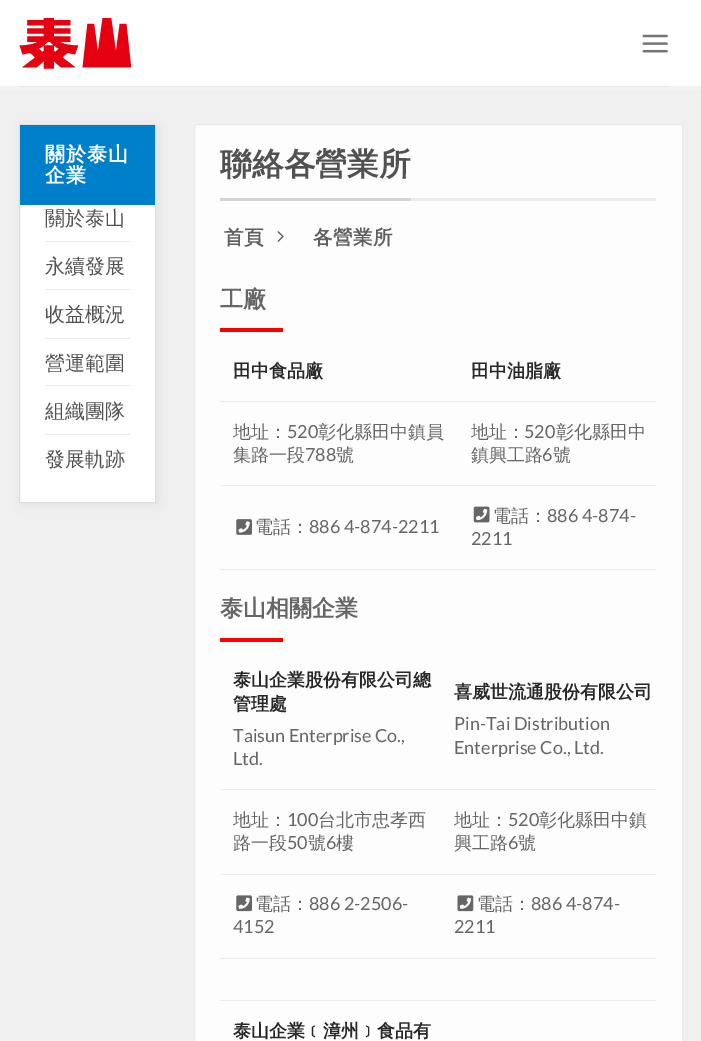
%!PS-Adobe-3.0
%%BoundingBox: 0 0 701 1041
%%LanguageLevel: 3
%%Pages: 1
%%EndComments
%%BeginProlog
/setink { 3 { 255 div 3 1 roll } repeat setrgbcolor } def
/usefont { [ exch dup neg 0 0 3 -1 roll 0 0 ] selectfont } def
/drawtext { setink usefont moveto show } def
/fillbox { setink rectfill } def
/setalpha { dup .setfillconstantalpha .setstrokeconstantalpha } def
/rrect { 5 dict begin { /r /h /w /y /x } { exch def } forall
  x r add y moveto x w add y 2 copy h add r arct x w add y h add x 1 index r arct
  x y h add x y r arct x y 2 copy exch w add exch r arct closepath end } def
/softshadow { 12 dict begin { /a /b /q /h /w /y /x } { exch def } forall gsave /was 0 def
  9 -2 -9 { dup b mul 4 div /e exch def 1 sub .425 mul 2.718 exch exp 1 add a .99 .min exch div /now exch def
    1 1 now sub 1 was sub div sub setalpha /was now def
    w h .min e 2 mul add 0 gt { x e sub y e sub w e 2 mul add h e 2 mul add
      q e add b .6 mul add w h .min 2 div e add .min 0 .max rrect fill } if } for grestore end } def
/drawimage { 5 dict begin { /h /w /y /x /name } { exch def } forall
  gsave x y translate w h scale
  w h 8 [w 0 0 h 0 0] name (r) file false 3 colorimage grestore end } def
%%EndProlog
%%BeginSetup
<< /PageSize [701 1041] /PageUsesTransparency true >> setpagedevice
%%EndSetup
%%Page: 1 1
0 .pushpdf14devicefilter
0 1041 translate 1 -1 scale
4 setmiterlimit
0 0 701 1041 255 255 255 fillbox
(assets/img1.rgb) 19 18 112 51 drawimage
(assets/img2.rgb) 642 34 26 19 drawimage
0 86 701 4 242 242 242 fillbox
19 86 651 1 230 230 230 fillbox
0 90 701 951 240 240 240 fillbox
0 0 0 setink
21 126 138 379 0 6 0.05 softshadow
20 205 135 297 255 255 255 fillbox
221 221 221 setink
19.5 124.5 136 378 rectstroke
20 125 135 80 0 128 203 fillbox
/WenQuanYiZenHei-Bold 20 usefont
255 255 255 setink
45 161 moveto 1 0 (關於泰山) ashow
45 182 moveto 1 0 (企業) ashow
(關於泰山) 45 225 /WenQuanYiZenHei-Medium 20 81 81 81 drawtext
45 241 85 1 236 236 236 fillbox
(永續發展) 45 273 /WenQuanYiZenHei-Medium 20 81 81 81 drawtext
45 289 85 1 236 236 236 fillbox
(收益概況) 45 321 /WenQuanYiZenHei-Medium 20 81 81 81 drawtext
45 338 85 1 236 236 236 fillbox
(營運範圍) 45 370 /WenQuanYiZenHei-Medium 20 81 81 81 drawtext
45 385 85 1 236 236 236 fillbox
(組織團隊) 45 418 /WenQuanYiZenHei-Medium 20 81 81 81 drawtext
45 434 85 1 236 236 236 fillbox
(發展軌跡) 45 466 /WenQuanYiZenHei-Medium 20 81 81 81 drawtext
253 253 253 setink
194.5 124.5 moveto 682.5 124.5 lineto 682.5 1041.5 lineto 194.5 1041.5 lineto closepath gsave fill grestore
234 234 234 setink
stroke
411 198 245 3 236 236 236 fillbox
220 198 191 3 212 212 212 fillbox
(聯絡各營業所) 220 175 /WenQuanYiZenHei-Bold 31.75 81 81 81 drawtext
/WenQuanYiZenHei-Bold 19.5 usefont
96 96 96 setink
224 244 moveto 0.5 0 (首頁) ashow
(assets/img3.rgb) 277 231 7 11 drawimage
313 244 moveto 0.5 0 (各營業所) ashow
(工廠) 220 307 /WenQuanYiZenHei-Bold 23 102 102 102 drawtext
220 328 63 4 250 0 0 fillbox
220 401 436 1 236 236 236 fillbox
(田中食品廠) 233 377 /WenQuanYiZenHei-Bold 18 40 40 40 drawtext
(田中油脂廠) 471 377 /WenQuanYiZenHei-Bold 18 40 40 40 drawtext
220 485 436 1 236 236 236 fillbox
(地址：) 233 438 /WenQuanYiZenHei-Medium 18 102 102 102 drawtext
(520) 287 438 /Lato-Regular 18 102 102 102 drawtext
(彰化縣田中鎮員) 318 438 /WenQuanYiZenHei-Medium 18 102 102 102 drawtext
(集路一段) 233 461 /WenQuanYiZenHei-Medium 18 102 102 102 drawtext
(788) 305 461 /Lato-Regular 18 102 102 102 drawtext
(號) 336 461 /WenQuanYiZenHei-Medium 18 102 102 102 drawtext
(地址：) 471 438 /WenQuanYiZenHei-Medium 18 102 102 102 drawtext
(520) 524 438 /Lato-Regular 18 102 102 102 drawtext
(彰化縣田中) 556 438 /WenQuanYiZenHei-Medium 18 102 102 102 drawtext
(鎮興工路) 471 461 /WenQuanYiZenHei-Medium 18 102 102 102 drawtext
(6) 542 461 /Lato-Regular 18 102 102 102 drawtext
(號) 553 461 /WenQuanYiZenHei-Medium 18 102 102 102 drawtext
220 569 436 1 236 236 236 fillbox
(assets/img4.rgb) 236 519 16 16 drawimage
(電話：) 255 533 /WenQuanYiZenHei-Medium 18 102 102 102 drawtext
(886 4-874-2211) 309 533 /Lato-Regular 18 102 102 102 drawtext
(assets/img5.rgb) 473 506 17 17 drawimage
(電話：) 493 522 /WenQuanYiZenHei-Medium 18 102 102 102 drawtext
(886 4-874-) 547 522 /Lato-Regular 18 102 102 102 drawtext
(2211) 471 545 /Lato-Regular 18 102 102 102 drawtext
(泰山相關企業) 220 616 /WenQuanYiZenHei-Bold 23 102 102 102 drawtext
220 638 63 4 250 0 0 fillbox
220 789 436 1 236 236 236 fillbox
(泰山企業股份有限公司總) 233 686 /WenQuanYiZenHei-Bold 18 40 40 40 drawtext
(管理處) 233 710 /WenQuanYiZenHei-Bold 18 40 40 40 drawtext
(Taisun Enterprise Co.,) 233 742 /Lato-Regular 18 102 102 102 drawtext
(Ltd.) 233 765 /Lato-Regular 18 102 102 102 drawtext
(喜威世流通股份有限公司) 454 698 /WenQuanYiZenHei-Bold 18 40 40 40 drawtext
(Pin-Tai Distribution) 454 730 /Lato-Regular 18 102 102 102 drawtext
(Enterprise Co., Ltd.) 454 754 /Lato-Regular 18 102 102 102 drawtext
220 874 436 1 236 236 236 fillbox
(地址：) 233 826 /WenQuanYiZenHei-Medium 18 102 102 102 drawtext
(100) 287 826 /Lato-Regular 18 102 102 102 drawtext
(台北市忠孝西) 318 826 /WenQuanYiZenHei-Medium 18 102 102 102 drawtext
(路一段) 233 849 /WenQuanYiZenHei-Medium 18 102 102 102 drawtext
(50) 287 849 /Lato-Regular 18 102 102 102 drawtext
(號) 308 849 /WenQuanYiZenHei-Medium 18 102 102 102 drawtext
(6) 326 849 /Lato-Regular 18 102 102 102 drawtext
(樓) 336 849 /WenQuanYiZenHei-Medium 18 102 102 102 drawtext
(地址：) 454 826 /WenQuanYiZenHei-Medium 18 102 102 102 drawtext
(520) 508 826 /Lato-Regular 18 102 102 102 drawtext
(彰化縣田中鎮) 539 826 /WenQuanYiZenHei-Medium 18 102 102 102 drawtext
(興工路) 454 849 /WenQuanYiZenHei-Medium 18 102 102 102 drawtext
(6) 508 849 /Lato-Regular 18 102 102 102 drawtext
(號) 518 849 /WenQuanYiZenHei-Medium 18 102 102 102 drawtext
220 958 436 1 236 236 236 fillbox
(assets/img6.rgb) 236 895 16 17 drawimage
(電話：) 255 910 /WenQuanYiZenHei-Medium 18 102 102 102 drawtext
(886 2-2506-) 309 910 /Lato-Regular 18 102 102 102 drawtext
(4152) 233 933 /Lato-Regular 18 102 102 102 drawtext
(assets/img7.rgb) 457 895 17 17 drawimage
(電話：) 477 910 /WenQuanYiZenHei-Medium 18 102 102 102 drawtext
(886 4-874-) 531 910 /Lato-Regular 18 102 102 102 drawtext
(2211) 454 933 /Lato-Regular 18 102 102 102 drawtext
220 1000 436 1 236 236 236 fillbox
(泰山企業﹝漳州﹞食品有) 233 1037 /WenQuanYiZenHei-Bold 18 40 40 40 drawtext
.poppdf14devicefilter showpage
%%EOF
